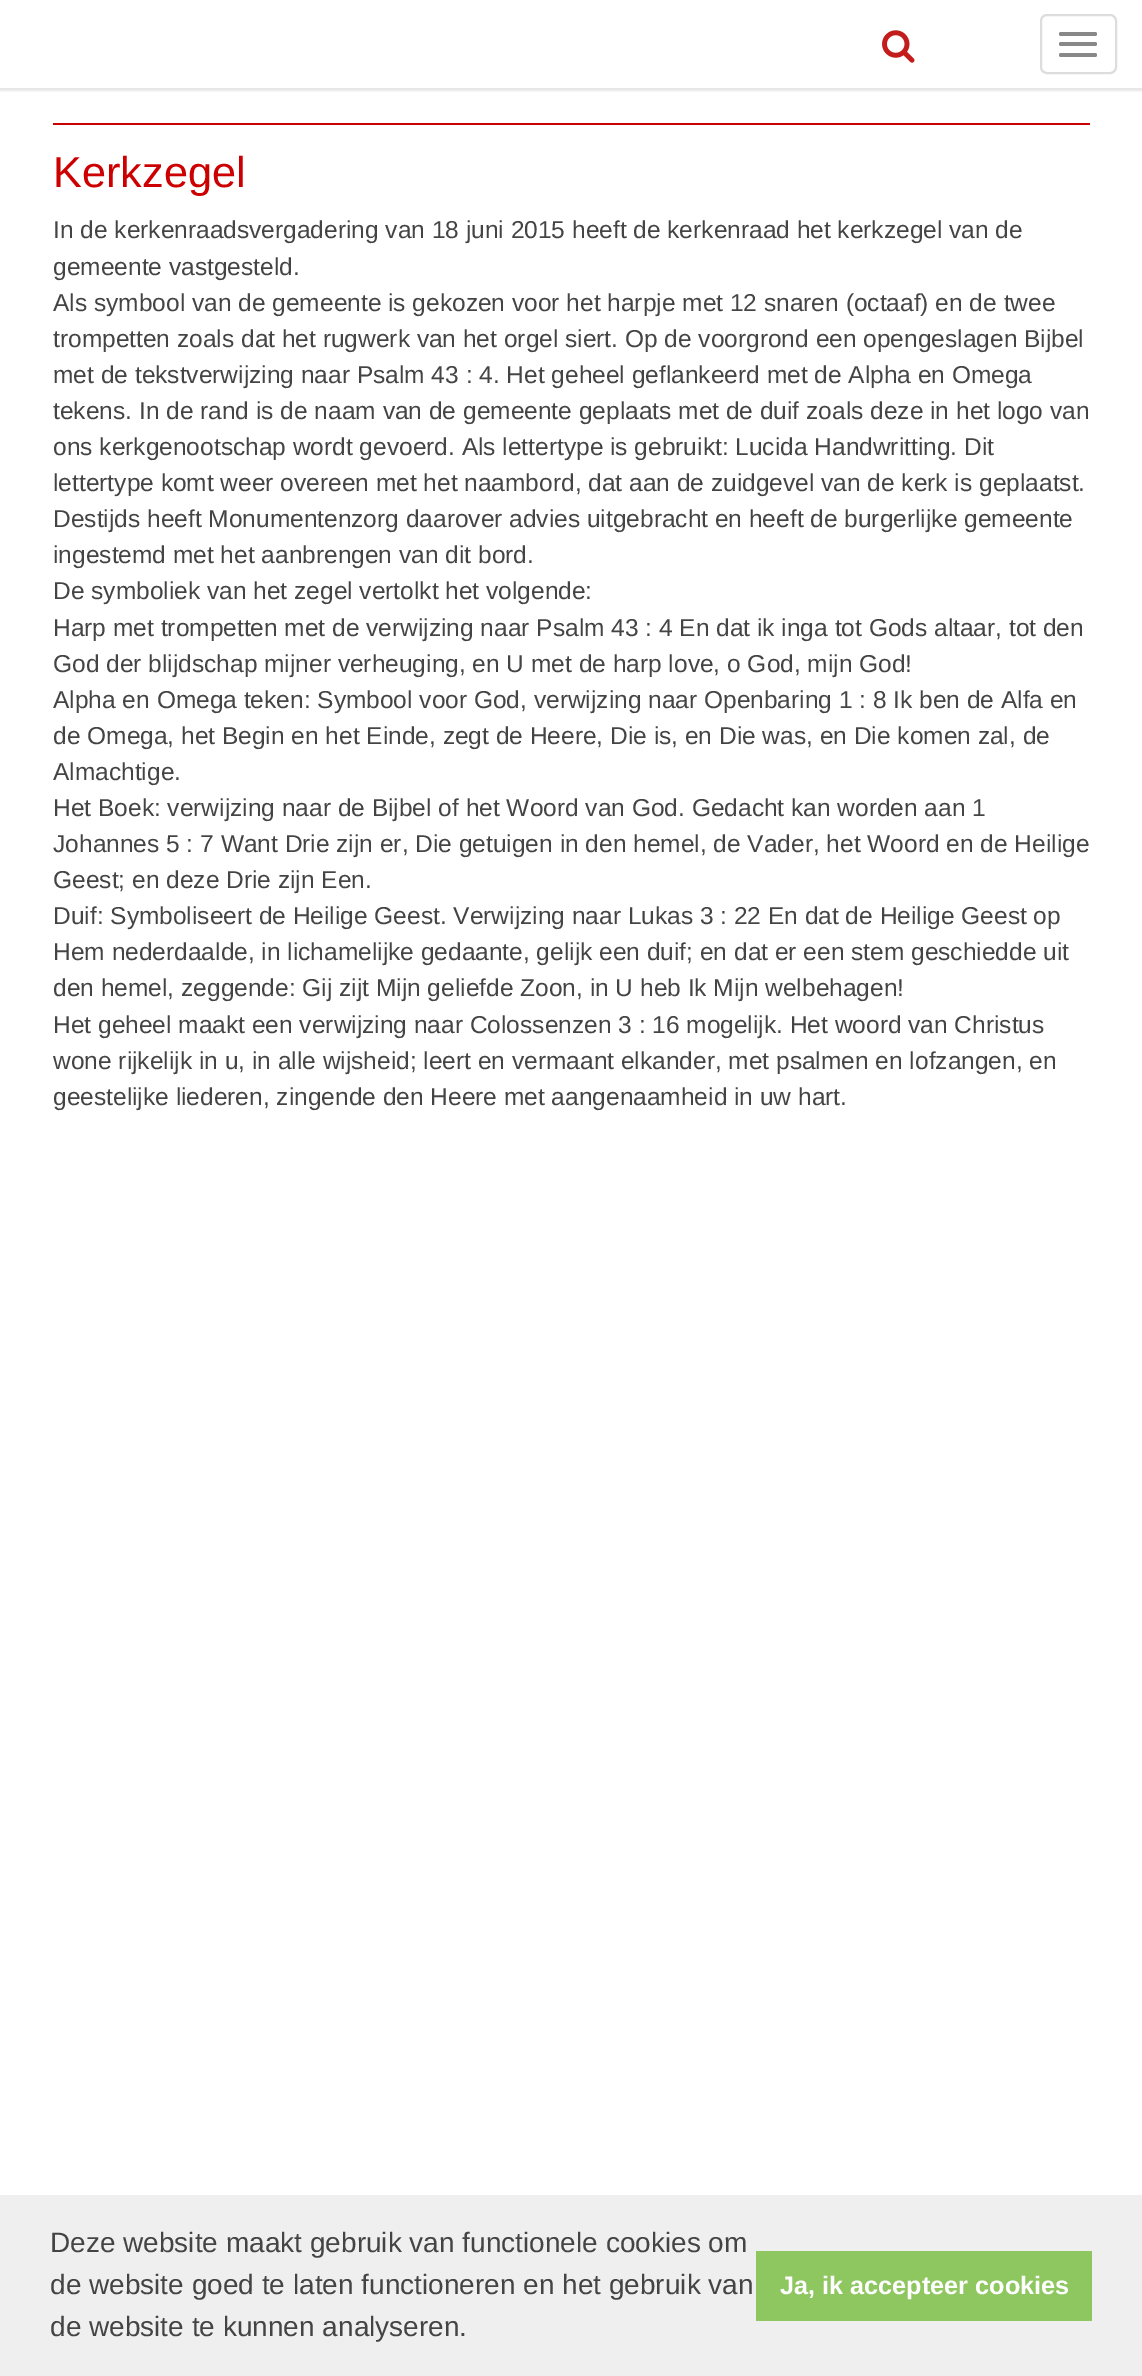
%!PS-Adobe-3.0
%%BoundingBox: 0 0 1142 2376
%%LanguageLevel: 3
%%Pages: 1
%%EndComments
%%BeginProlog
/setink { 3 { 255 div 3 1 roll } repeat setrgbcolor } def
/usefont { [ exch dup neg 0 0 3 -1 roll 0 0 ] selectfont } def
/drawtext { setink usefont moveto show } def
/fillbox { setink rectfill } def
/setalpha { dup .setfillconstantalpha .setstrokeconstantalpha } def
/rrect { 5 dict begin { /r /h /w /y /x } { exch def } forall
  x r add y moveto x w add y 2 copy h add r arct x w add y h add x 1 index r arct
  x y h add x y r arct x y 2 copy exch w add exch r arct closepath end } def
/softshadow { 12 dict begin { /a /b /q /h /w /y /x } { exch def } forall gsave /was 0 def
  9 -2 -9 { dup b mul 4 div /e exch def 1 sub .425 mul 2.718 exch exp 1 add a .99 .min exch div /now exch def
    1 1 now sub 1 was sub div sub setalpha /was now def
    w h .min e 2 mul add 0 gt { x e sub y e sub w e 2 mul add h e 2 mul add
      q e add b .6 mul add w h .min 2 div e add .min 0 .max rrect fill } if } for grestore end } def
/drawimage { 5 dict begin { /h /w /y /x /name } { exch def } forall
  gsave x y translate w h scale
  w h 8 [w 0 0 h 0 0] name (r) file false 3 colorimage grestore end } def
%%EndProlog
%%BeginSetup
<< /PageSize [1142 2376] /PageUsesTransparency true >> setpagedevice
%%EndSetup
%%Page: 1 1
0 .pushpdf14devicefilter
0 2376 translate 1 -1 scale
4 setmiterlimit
0 0 1142 2376 255 255 255 fillbox
gsave
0 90 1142 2 rectclip
0 0 0 setink
0 0 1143 89 0 2.5 0.22 softshadow
grestore
0 88 1142 2 231 231 231 fillbox
(assets/img1.rgb) 882 30 33 33 drawimage
221 221 221 setink
2 setlinewidth
1041 15 75 58 6 rrect stroke
136 136 136 setink
1059 32 38 4 2 rrect fill
1059 42 38 4 2 rrect fill
1059 53 38 4 2 rrect fill
53 123 1037 2 204 0 0 fillbox
(Kerkzegel) 53 187 /LiberationSans-Regular 43.25 204 0 0 drawtext
(In de kerkenraadsvergadering van 18 juni 2015 heeft de kerkenraad het kerkzegel van de) 53 238 /LiberationSans-Regular 24.5 68 68 68 drawtext
(gemeente vastgesteld.) 53 275 /LiberationSans-Regular 24.5 68 68 68 drawtext
(Als symbool van de gemeente is gekozen voor het harpje met 12 snaren \(octaaf\) en de twee) 53 311 /LiberationSans-Regular 24.5 68 68 68 drawtext
(trompetten zoals dat het rugwerk van het orgel siert. Op de voorgrond een opengeslagen Bijbel) 53 347 /LiberationSans-Regular 24.5 68 68 68 drawtext
(met de tekstverwijzing naar Psalm 43 : 4. Het geheel geflankeerd met de Alpha en Omega) 53 383 /LiberationSans-Regular 24.5 68 68 68 drawtext
(tekens. In de rand is de naam van de gemeente geplaats met de duif zoals deze in het logo van) 53 419 /LiberationSans-Regular 24.5 68 68 68 drawtext
(ons kerkgenootschap wordt gevoerd. Als lettertype is gebruikt: Lucida Handwritting. Dit) 53 455 /LiberationSans-Regular 24.5 68 68 68 drawtext
(lettertype komt weer overeen met het naambord, dat aan de zuidgevel van de kerk is geplaatst.) 53 491 /LiberationSans-Regular 24.5 68 68 68 drawtext
(Destijds heeft Monumentenzorg daarover advies uitgebracht en heeft de burgerlijke gemeente) 53 527 /LiberationSans-Regular 24.5 68 68 68 drawtext
(ingestemd met het aanbrengen van dit bord.) 53 563 /LiberationSans-Regular 24.5 68 68 68 drawtext
(De symboliek van het zegel vertolkt het volgende:) 53 599 /LiberationSans-Regular 24.5 68 68 68 drawtext
(Harp met trompetten met de verwijzing naar Psalm 43 : 4 En dat ik inga tot Gods altaar, tot den) 53 636 /LiberationSans-Regular 24.5 68 68 68 drawtext
(God der blijdschap mijner verheuging, en U met de harp love, o God, mijn God!) 53 672 /LiberationSans-Regular 24.5 68 68 68 drawtext
(Alpha en Omega teken: Symbool voor God, verwijzing naar Openbaring 1 : 8 Ik ben de Alfa en) 53 708 /LiberationSans-Regular 24.5 68 68 68 drawtext
(de Omega, het Begin en het Einde, zegt de Heere, Die is, en Die was, en Die komen zal, de) 53 744 /LiberationSans-Regular 24.5 68 68 68 drawtext
(Almachtige.) 53 780 /LiberationSans-Regular 24.5 68 68 68 drawtext
(Het Boek: verwijzing naar de Bijbel of het Woord van God. Gedacht kan worden aan 1) 53 816 /LiberationSans-Regular 24.5 68 68 68 drawtext
(Johannes 5 : 7 Want Drie zijn er, Die getuigen in den hemel, de Vader, het Woord en de Heilige) 53 852 /LiberationSans-Regular 24.5 68 68 68 drawtext
(Geest; en deze Drie zijn Een.) 53 888 /LiberationSans-Regular 24.5 68 68 68 drawtext
(Duif: Symboliseert de Heilige Geest. Verwijzing naar Lukas 3 : 22 En dat de Heilige Geest op) 53 924 /LiberationSans-Regular 24.5 68 68 68 drawtext
(Hem nederdaalde, in lichamelijke gedaante, gelijk een duif; en dat er een stem geschiedde uit) 53 960 /LiberationSans-Regular 24.5 68 68 68 drawtext
(den hemel, zeggende: Gij zijt Mijn geliefde Zoon, in U heb Ik Mijn welbehagen!) 53 996 /LiberationSans-Regular 24.5 68 68 68 drawtext
(Het geheel maakt een verwijzing naar Colossenzen 3 : 16 mogelijk. Het woord van Christus) 53 1033 /LiberationSans-Regular 24.5 68 68 68 drawtext
(wone rijkelijk in u, in alle wijsheid; leert en vermaant elkander, met psalmen en lofzangen, en) 53 1069 /LiberationSans-Regular 24.5 68 68 68 drawtext
(geestelijke liederen, zingende den Heere met aangenaamheid in uw hart.) 53 1105 /LiberationSans-Regular 24.5 68 68 68 drawtext
0 2195 1142 181 239 239 239 fillbox
(Deze website maakt gebruik van functionele cookies om) 50 2252 /LiberationSans-Regular 28 68 68 68 drawtext
(de website goed te laten functioneren en het gebruik van) 50 2294 /LiberationSans-Regular 28 68 68 68 drawtext
(de website te kunnen analyseren.) 50 2336 /LiberationSans-Regular 28 68 68 68 drawtext
756 2251 336 70 142 199 96 fillbox
(Ja, ik accepteer cookies) 780 2294 /LiberationSans-Bold 25.25 255 255 255 drawtext
.poppdf14devicefilter showpage
%%EOF
